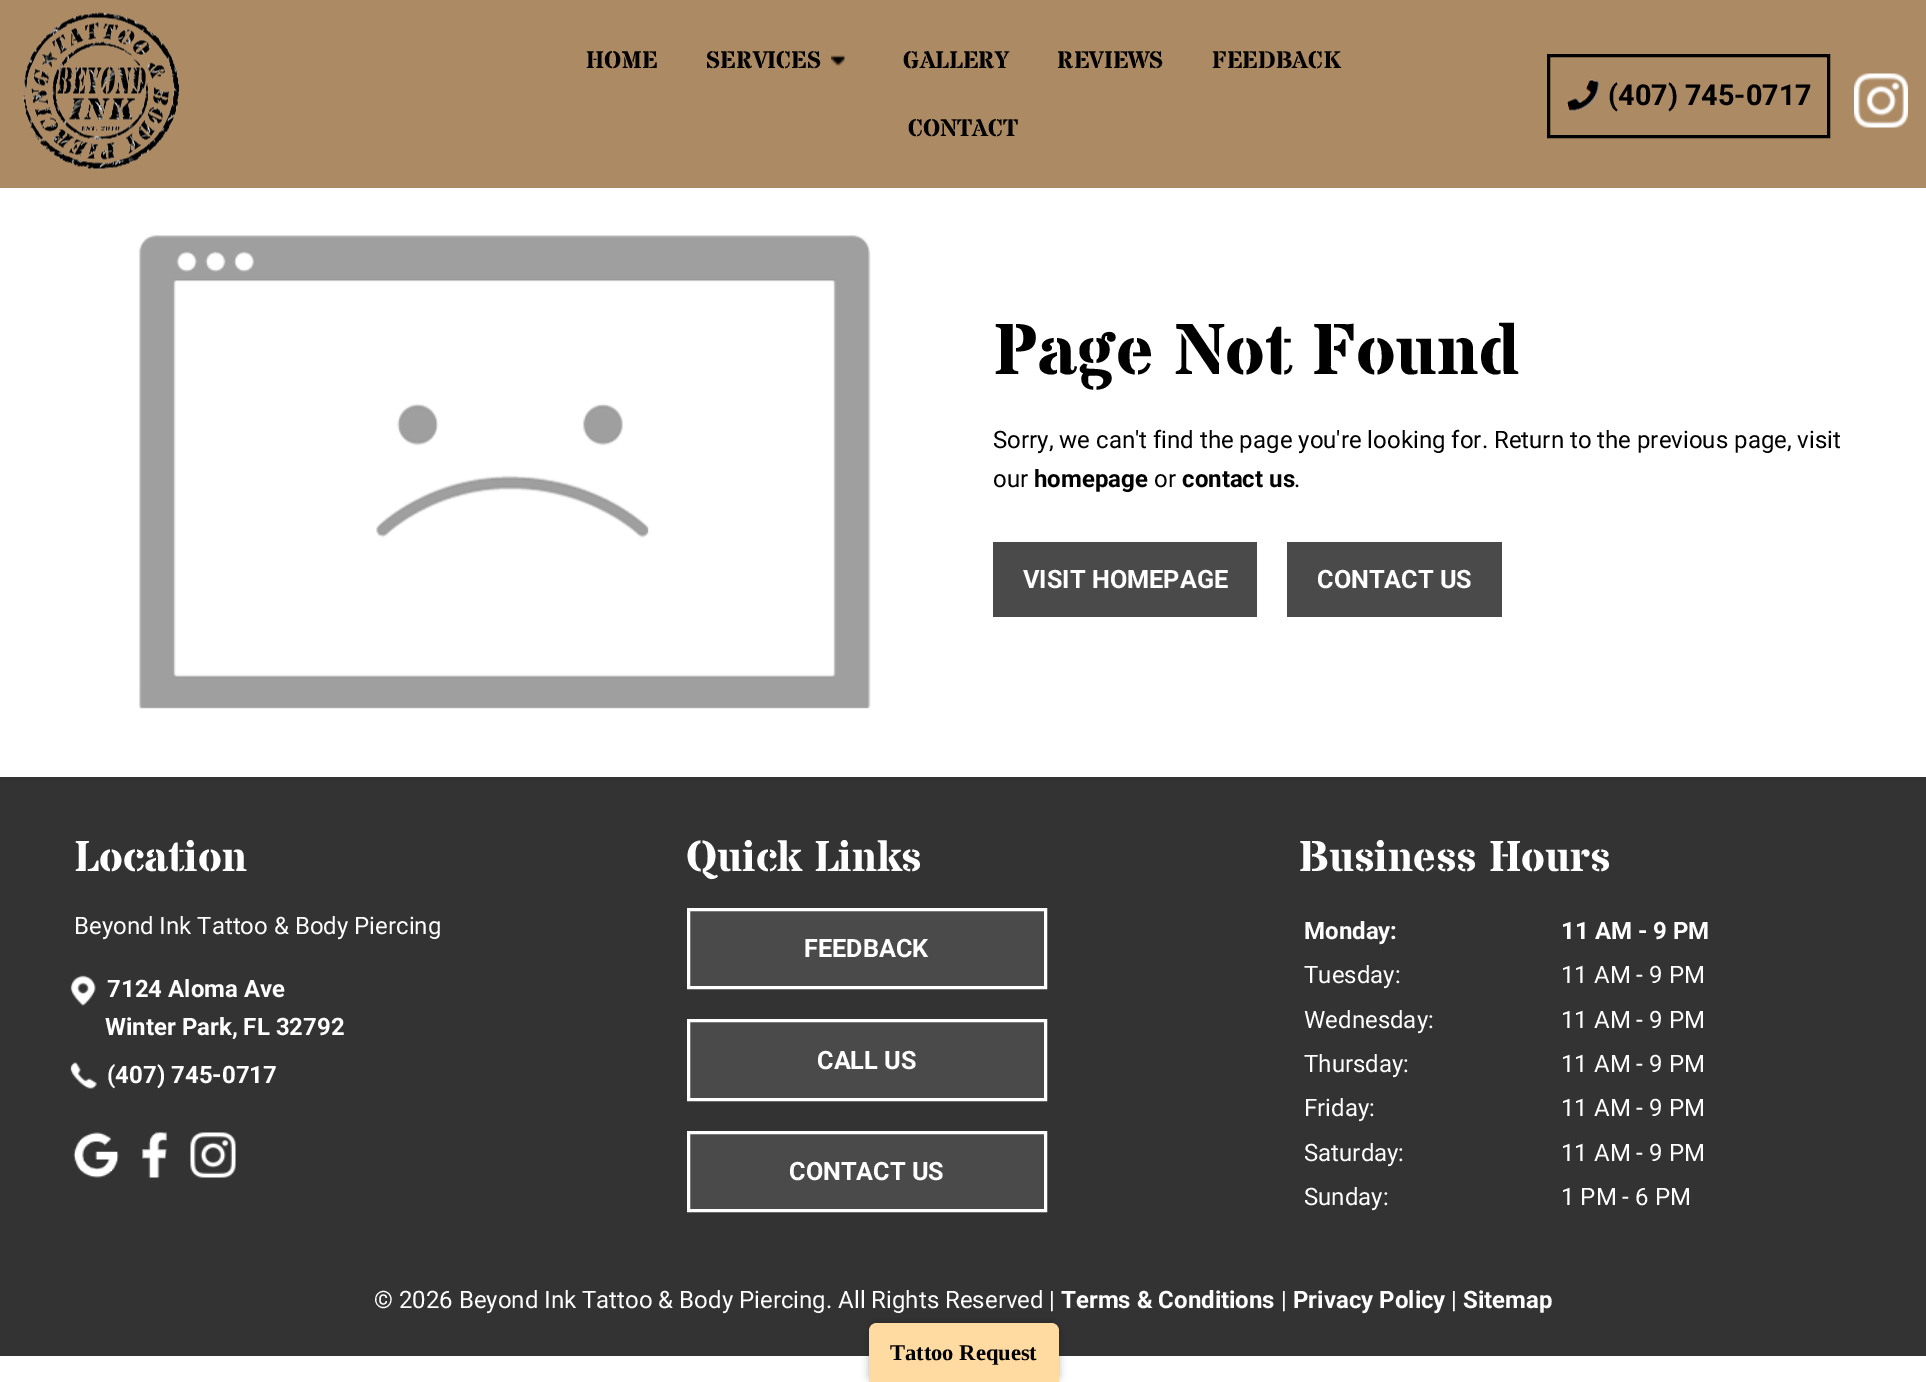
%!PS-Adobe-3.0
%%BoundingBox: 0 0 1926 1382
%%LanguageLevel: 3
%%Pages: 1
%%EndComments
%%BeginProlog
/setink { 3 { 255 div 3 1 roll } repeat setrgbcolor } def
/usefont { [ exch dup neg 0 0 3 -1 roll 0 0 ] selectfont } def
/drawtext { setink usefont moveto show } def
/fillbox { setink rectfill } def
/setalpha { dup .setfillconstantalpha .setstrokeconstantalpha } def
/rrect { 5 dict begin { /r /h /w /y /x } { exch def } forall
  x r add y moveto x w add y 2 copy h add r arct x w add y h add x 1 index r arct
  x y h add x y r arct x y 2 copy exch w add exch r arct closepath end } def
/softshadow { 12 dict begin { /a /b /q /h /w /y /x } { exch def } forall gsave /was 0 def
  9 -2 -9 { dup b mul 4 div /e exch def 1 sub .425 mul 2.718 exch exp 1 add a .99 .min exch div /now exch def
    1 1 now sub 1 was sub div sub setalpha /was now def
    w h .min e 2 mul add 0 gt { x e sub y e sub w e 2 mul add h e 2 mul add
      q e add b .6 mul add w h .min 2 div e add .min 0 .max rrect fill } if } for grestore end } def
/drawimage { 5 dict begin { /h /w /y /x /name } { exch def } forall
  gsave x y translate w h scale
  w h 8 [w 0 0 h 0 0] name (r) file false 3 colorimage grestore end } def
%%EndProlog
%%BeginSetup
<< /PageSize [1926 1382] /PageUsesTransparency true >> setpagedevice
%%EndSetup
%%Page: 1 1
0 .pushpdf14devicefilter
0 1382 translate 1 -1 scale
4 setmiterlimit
0 0 1926 1382 255 255 255 fillbox
0 0 1926 188 172 138 100 fillbox
(assets/img1.rgb) 23 12 157 158 drawimage
(HOME) 586 68 /StardosStencil-Bold 24 0 0 0 drawtext
(SERVICES) 706 68 /StardosStencil-Bold 24 0 0 0 drawtext
(assets/img2.rgb) 831 55 14 12 drawimage
(GALLERY) 903 68 /StardosStencil-Bold 24 0 0 0 drawtext
(REVIEWS) 1057 68 /StardosStencil-Bold 24 0 0 0 drawtext
(FEEDBACK) 1212 68 /StardosStencil-Bold 24 0 0 0 drawtext
(CONTACT) 908 136 /StardosStencil-Bold 24 0 0 0 drawtext
3 setlinewidth
1548.5 55.5 280 81 rectstroke
(assets/img3.rgb) 1567 79 32 33 drawimage
(\(407\) 745-0717) 1608 105 /Roboto-Bold 28.75 0 0 0 drawtext
(assets/img4.rgb) 1854 73 54 55 drawimage
(assets/img5.rgb) 139 235 732 474 drawimage
(Page Not Found) 993 374 /StardosStencil-Bold 72 0 0 0 drawtext
(Sorry, we can't find the page you're looking for. Return to the previous page, visit) 993 448 /Roboto-Regular 24 0 0 0 drawtext
(our) 993 487 /Roboto-Regular 24 0 0 0 drawtext
(homepage) 1034 487 /Roboto-Bold 24 0 0 0 drawtext
(or) 1154 487 /Roboto-Regular 24 0 0 0 drawtext
(contact us) 1182 487 /Roboto-Bold 24 0 0 0 drawtext
(.) 1294 487 /Roboto-Regular 24 0 0 0 drawtext
993 542 264 75 74 74 74 fillbox
(VISIT HOMEPAGE) 1023 588 /Roboto-Bold 25.25 255 255 255 drawtext
1287 542 215 75 74 74 74 fillbox
(CONTACT US) 1317 588 /Roboto-Bold 25.25 255 255 255 drawtext
0 777 1926 579 51 51 51 fillbox
(Location) 74 871 /StardosStencil-Bold 43.25 255 255 255 drawtext
(Beyond Ink Tattoo & Body Piercing) 74 934 /Roboto-Regular 24 255 255 255 drawtext
(assets/img6.rgb) 70 975 26 31 drawimage
(7124 Aloma Ave) 107 997 /Roboto-Bold 24 255 255 255 drawtext
(Winter Park, FL 32792) 105 1035 /Roboto-Bold 24 255 255 255 drawtext
(assets/img7.rgb) 70 1062 27 27 drawimage
(\(407\) 745-0717) 107 1083 /Roboto-Bold 24 255 255 255 drawtext
(assets/img8.rgb) 73 1132 46 46 drawimage
(assets/img9.rgb) 142 1132 25 46 drawimage
(assets/img10.rgb) 190 1132 46 46 drawimage
(Quick Links) 686 871 /StardosStencil-Bold 43.25 255 255 255 drawtext
74 74 74 setink
688.5 909.5 moveto 1045.5 909.5 lineto 1045.5 987.5 lineto 688.5 987.5 lineto closepath gsave fill grestore
255 255 255 setink
stroke
(FEEDBACK) 804 957 /Roboto-Bold 25.25 255 255 255 drawtext
74 74 74 setink
688.5 1020.5 moveto 1045.5 1020.5 lineto 1045.5 1099.5 lineto 688.5 1099.5 lineto closepath gsave fill grestore
255 255 255 setink
stroke
(CALL US) 817 1069 /Roboto-Bold 25.25 255 255 255 drawtext
74 74 74 setink
688.5 1132.5 moveto 1045.5 1132.5 lineto 1045.5 1210.5 lineto 688.5 1210.5 lineto closepath gsave fill grestore
255 255 255 setink
stroke
(CONTACT US) 789 1180 /Roboto-Bold 25.25 255 255 255 drawtext
(Business Hours) 1299 871 /StardosStencil-Bold 43.25 255 255 255 drawtext
(Monday:) 1304 939 /Roboto-Bold 24 255 255 255 drawtext
(11 AM - 9 PM) 1561 939 /Roboto-Bold 24 255 255 255 drawtext
(Tuesday:) 1304 983 /Roboto-Regular 24 255 255 255 drawtext
(11 AM - 9 PM) 1561 983 /Roboto-Regular 24 255 255 255 drawtext
(Wednesday:) 1304 1028 /Roboto-Regular 24 255 255 255 drawtext
(11 AM - 9 PM) 1561 1028 /Roboto-Regular 24 255 255 255 drawtext
(Thursday:) 1304 1072 /Roboto-Regular 24 255 255 255 drawtext
(11 AM - 9 PM) 1561 1072 /Roboto-Regular 24 255 255 255 drawtext
(Friday:) 1304 1116 /Roboto-Regular 24 255 255 255 drawtext
(11 AM - 9 PM) 1561 1116 /Roboto-Regular 24 255 255 255 drawtext
(Saturday:) 1304 1161 /Roboto-Regular 24 255 255 255 drawtext
(11 AM - 9 PM) 1561 1161 /Roboto-Regular 24 255 255 255 drawtext
(Sunday:) 1304 1205 /Roboto-Regular 24 255 255 255 drawtext
(1 PM - 6 PM) 1561 1205 /Roboto-Regular 24 255 255 255 drawtext
(© 2026 Beyond Ink Tattoo & Body Piercing. All Rights Reserved |) 374 1308 /Roboto-Regular 24 255 255 255 drawtext
(Terms & Conditions) 1061 1308 /Roboto-Bold 24 255 255 255 drawtext
(|) 1281 1308 /Roboto-Regular 24 255 255 255 drawtext
(Privacy Policy) 1293 1308 /Roboto-Bold 24 255 255 255 drawtext
(|) 1451 1308 /Roboto-Regular 24 255 255 255 drawtext
(Sitemap) 1463 1308 /Roboto-Bold 24 255 255 255 drawtext
0 0 0 setink
869 1323 190 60 8 4 0.3 softshadow
255 219 161 setink
877 1323 moveto 1051 1323 lineto 1055.5 1323 1059 1326.5 1059 1331 curveto 1059 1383 lineto 869 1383 lineto 869 1331 lineto 869 1326.5 872.5 1323 877 1323 curveto closepath fill
(Tattoo Request) 890 1360 /LiberationSerif-Bold 22.5 0 0 0 drawtext
.poppdf14devicefilter showpage
%%EOF
